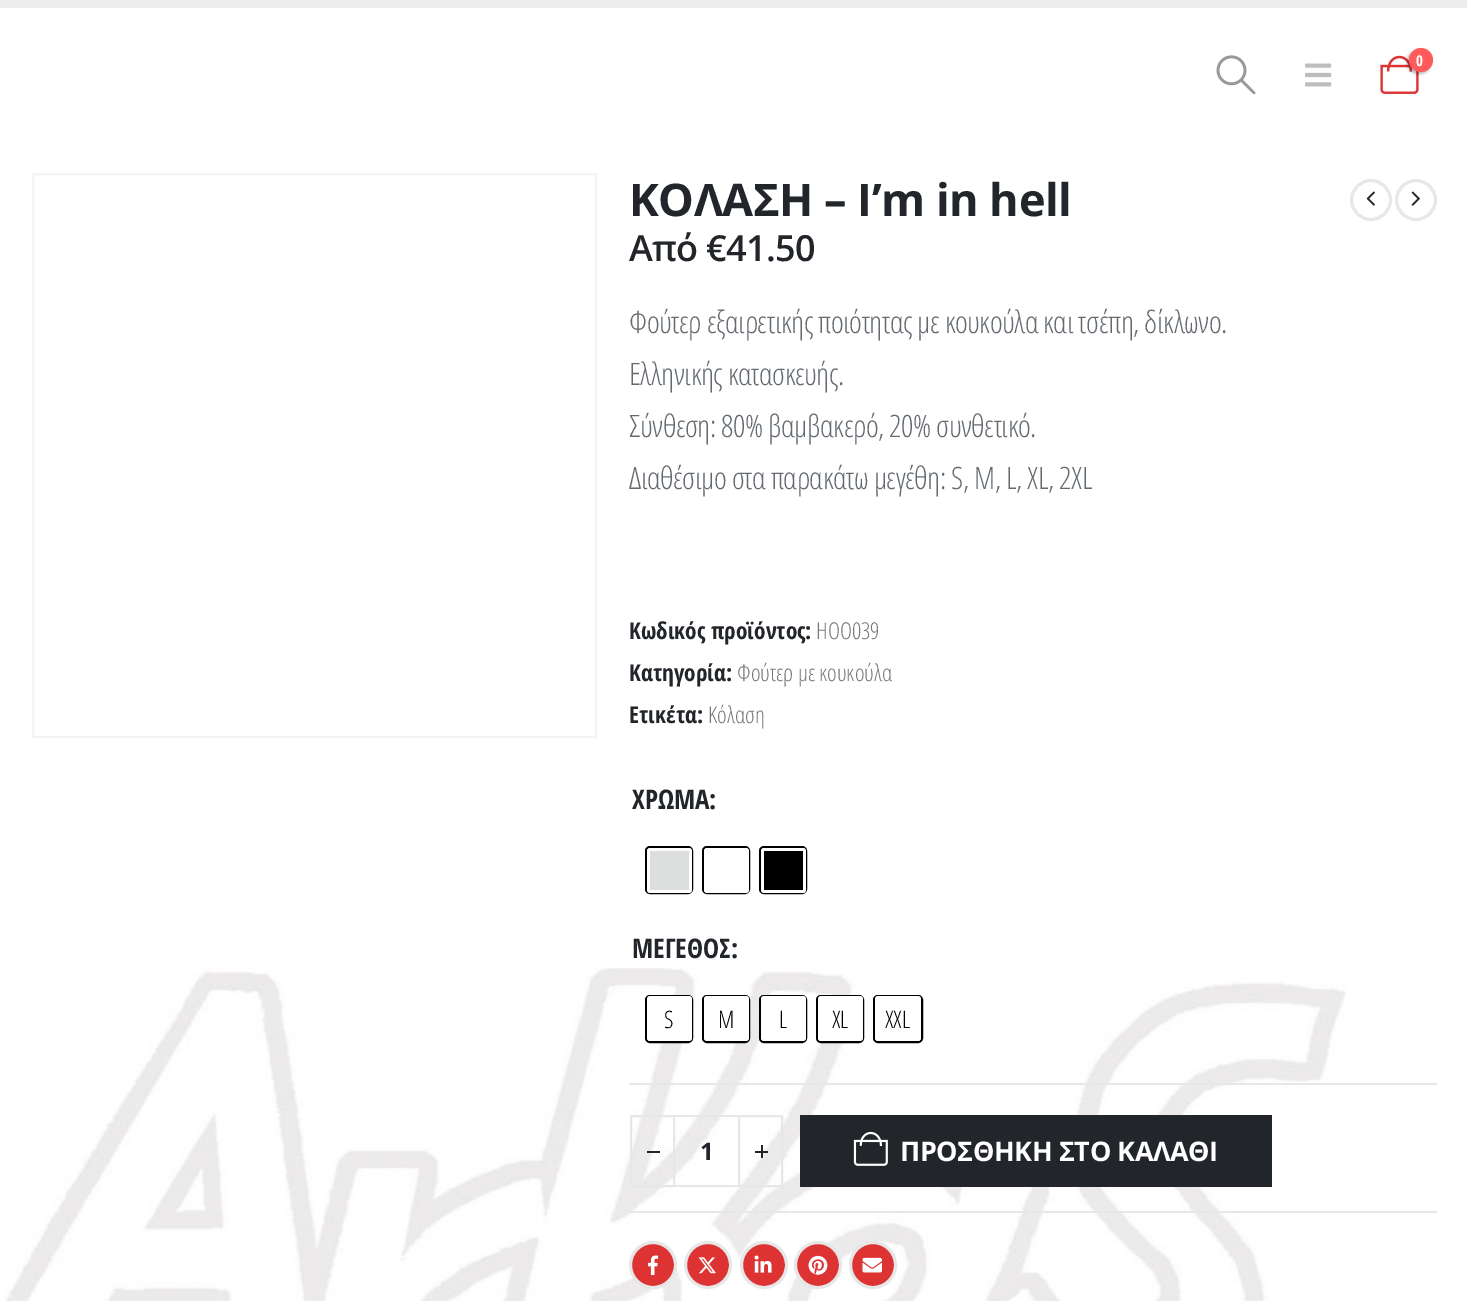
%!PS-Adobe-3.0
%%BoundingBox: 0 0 1467 1301
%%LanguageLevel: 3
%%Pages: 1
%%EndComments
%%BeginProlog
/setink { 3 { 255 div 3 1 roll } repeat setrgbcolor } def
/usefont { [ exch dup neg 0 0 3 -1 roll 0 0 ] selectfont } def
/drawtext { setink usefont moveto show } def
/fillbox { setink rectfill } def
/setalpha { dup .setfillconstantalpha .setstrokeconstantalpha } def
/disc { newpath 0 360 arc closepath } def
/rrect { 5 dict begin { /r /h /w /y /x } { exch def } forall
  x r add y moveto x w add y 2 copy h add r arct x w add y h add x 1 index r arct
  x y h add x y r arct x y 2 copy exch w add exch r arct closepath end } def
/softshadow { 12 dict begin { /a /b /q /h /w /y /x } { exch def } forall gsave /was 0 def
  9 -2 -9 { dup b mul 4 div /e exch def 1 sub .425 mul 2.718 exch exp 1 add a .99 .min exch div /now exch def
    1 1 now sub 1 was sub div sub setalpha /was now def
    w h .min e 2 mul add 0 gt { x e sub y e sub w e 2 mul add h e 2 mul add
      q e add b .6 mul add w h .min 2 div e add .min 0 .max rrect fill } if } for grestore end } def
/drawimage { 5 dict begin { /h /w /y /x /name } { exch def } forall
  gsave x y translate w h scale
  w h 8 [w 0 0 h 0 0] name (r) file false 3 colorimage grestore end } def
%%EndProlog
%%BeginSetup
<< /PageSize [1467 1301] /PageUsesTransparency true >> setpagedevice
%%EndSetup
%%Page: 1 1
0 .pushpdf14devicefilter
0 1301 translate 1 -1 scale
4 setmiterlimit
0 0 1467 1301 255 255 255 fillbox
(assets/img1.rgb) 5 968 1341 333 drawimage
0 0 1467 8 237 237 237 fillbox
(assets/img2.rgb) 1216 55 40 40 drawimage
(assets/img3.rgb) 1380 55 39 39 drawimage
0 0 0 setink
1407 50 24 24 12 1.5 0.3 softshadow
255 91 91 setink
1421 60 12 disc fill
(0) 1416 66 /OpenSansCondensed-Bold 15 255 255 255 drawtext
(assets/img4.rgb) 1305 63 27 24 drawimage
244 244 244 setink
2 setlinewidth
33 174 563 563 rectstroke
/OpenSans-Bold 45 usefont
34 37 41 setink
629 216 moveto -0.5 0 (ΚΟΛΑΣΗ – I’m in hell) ashow
231 231 231 setink
3 setlinewidth
1371 200 19.5 disc stroke
(assets/img5.rgb) 1366 191 9 15 drawimage
1416 200 19.5 disc stroke
(assets/img6.rgb) 1411 191 9 15 drawimage
/OpenSans-SemiBold 36 usefont
34 37 41 setink
629 261 moveto -0.75 0 (Από €41.50) ashow
/OpenSansCondensed-Light 30.9 usefont
100 106 112 setink
629 333 moveto -0.45 0 (Φούτερ εξαιρετικής ποιότητας με κουκούλα και τσέπη, δίκλωνο.) ashow
629 385 moveto -0.45 0 (Ελληνικής κατασκευής.) ashow
629 437 moveto -0.45 0 (Σύνθεση: 80% βαμβακερό, 20% συνθετικό.) ashow
629 489 moveto -0.45 0 (Διαθέσιμο στα παρακάτω μεγέθη: S, M, L, XL, 2XL) ashow
(Κωδικός προϊόντος:) 629 639 /OpenSansCondensed-Bold 23.25 34 37 41 drawtext
(HOO039) 816 639 /OpenSansCondensed-Light 23.25 119 119 119 drawtext
(Κατηγορία:) 629 681 /OpenSansCondensed-Bold 23.25 34 37 41 drawtext
(Φούτερ με κουκούλα) 737 681 /OpenSansCondensed-Light 23.25 119 119 119 drawtext
(Ετικέτα:) 629 723 /OpenSansCondensed-Bold 23.25 34 37 41 drawtext
(Κόλαση) 708 723 /OpenSansCondensed-Light 23.25 119 119 119 drawtext
(ΧΡΩΜΑ:) 632 809 /OpenSansCondensed-Bold 27 34 37 41 drawtext
0 0 0 setink
2 setlinewidth
646 847 46 46 4 rrect stroke
255 255 255 setink
647 848 45 45 3 rrect fill
650 851 39 39 220 223 221 fillbox
0 0 0 setink
703 847 46 46 4 rrect stroke
255 255 255 setink
704 848 45 45 3 rrect fill
0 0 0 setink
760 847 46 46 4 rrect stroke
255 255 255 setink
761 848 45 45 3 rrect fill
764 851 39 39 0 0 0 fillbox
(ΜΕΓΕΘΟΣ:) 632 958 /OpenSansCondensed-Bold 27 34 37 41 drawtext
0 0 0 setink
646 996 46 46 4 rrect stroke
255 255 255 setink
647 996 45 45 3 rrect fill
(S) 664 1028 /OpenSansCondensed-Light 24 0 0 0 drawtext
703 996 46 46 4 rrect stroke
255 255 255 setink
704 996 45 45 3 rrect fill
(M) 718 1028 /OpenSansCondensed-Light 24 0 0 0 drawtext
760 996 46 46 4 rrect stroke
255 255 255 setink
761 996 45 45 3 rrect fill
(L) 779 1028 /OpenSansCondensed-Light 24 0 0 0 drawtext
817 996 46 46 4 rrect stroke
255 255 255 setink
818 996 45 45 3 rrect fill
(XL) 832 1028 /OpenSansCondensed-Light 24 0 0 0 drawtext
874 996 48 46 4 rrect stroke
255 255 255 setink
875 996 46 45 3 rrect fill
(XXL) 885 1028 /OpenSansCondensed-Light 24 0 0 0 drawtext
629 1083 808 2 231 231 231 fillbox
629 1211 808 2 231 231 231 fillbox
674 1115 66 2 231 231 231 fillbox
674 1185 66 2 231 231 231 fillbox
631 1116 43 70 rectstroke
647 1151 13 2 34 37 41 fillbox
(1) 700 1160 /OpenSans-Bold 24 34 37 41 drawtext
231 231 231 setink
739 1116 43 70 rectstroke
755 1151 13 2 34 37 41 fillbox
761 1145 2 13 34 37 41 fillbox
800 1115 472 72 34 37 41 fillbox
(assets/img7.rgb) 853 1131 35 35 drawimage
/OpenSans-Bold 27 usefont
255 255 255 setink
900 1161 moveto -0.4 0 (ΠΡΟΣΘΗΚΗ ΣΤΟ ΚΑΛΑΘΙ) ashow
221 51 51 setink
653 1265 22.5 disc gsave fill grestore
231 231 231 setink
3 setlinewidth
stroke
(assets/img8.rgb) 648 1255 11 21 drawimage
221 51 51 setink
708 1265 22.5 disc gsave fill grestore
231 231 231 setink
stroke
(assets/img9.rgb) 698 1257 18 17 drawimage
221 51 51 setink
764 1265 22.5 disc gsave fill grestore
231 231 231 setink
stroke
(assets/img10.rgb) 754 1255 18 18 drawimage
221 51 51 setink
818 1265 22.5 disc gsave fill grestore
231 231 231 setink
stroke
(assets/img11.rgb) 808 1255 20 20 drawimage
221 51 51 setink
873 1265 22.5 disc gsave fill grestore
231 231 231 setink
stroke
(assets/img12.rgb) 862 1257 20 16 drawimage
.poppdf14devicefilter showpage
%%EOF
